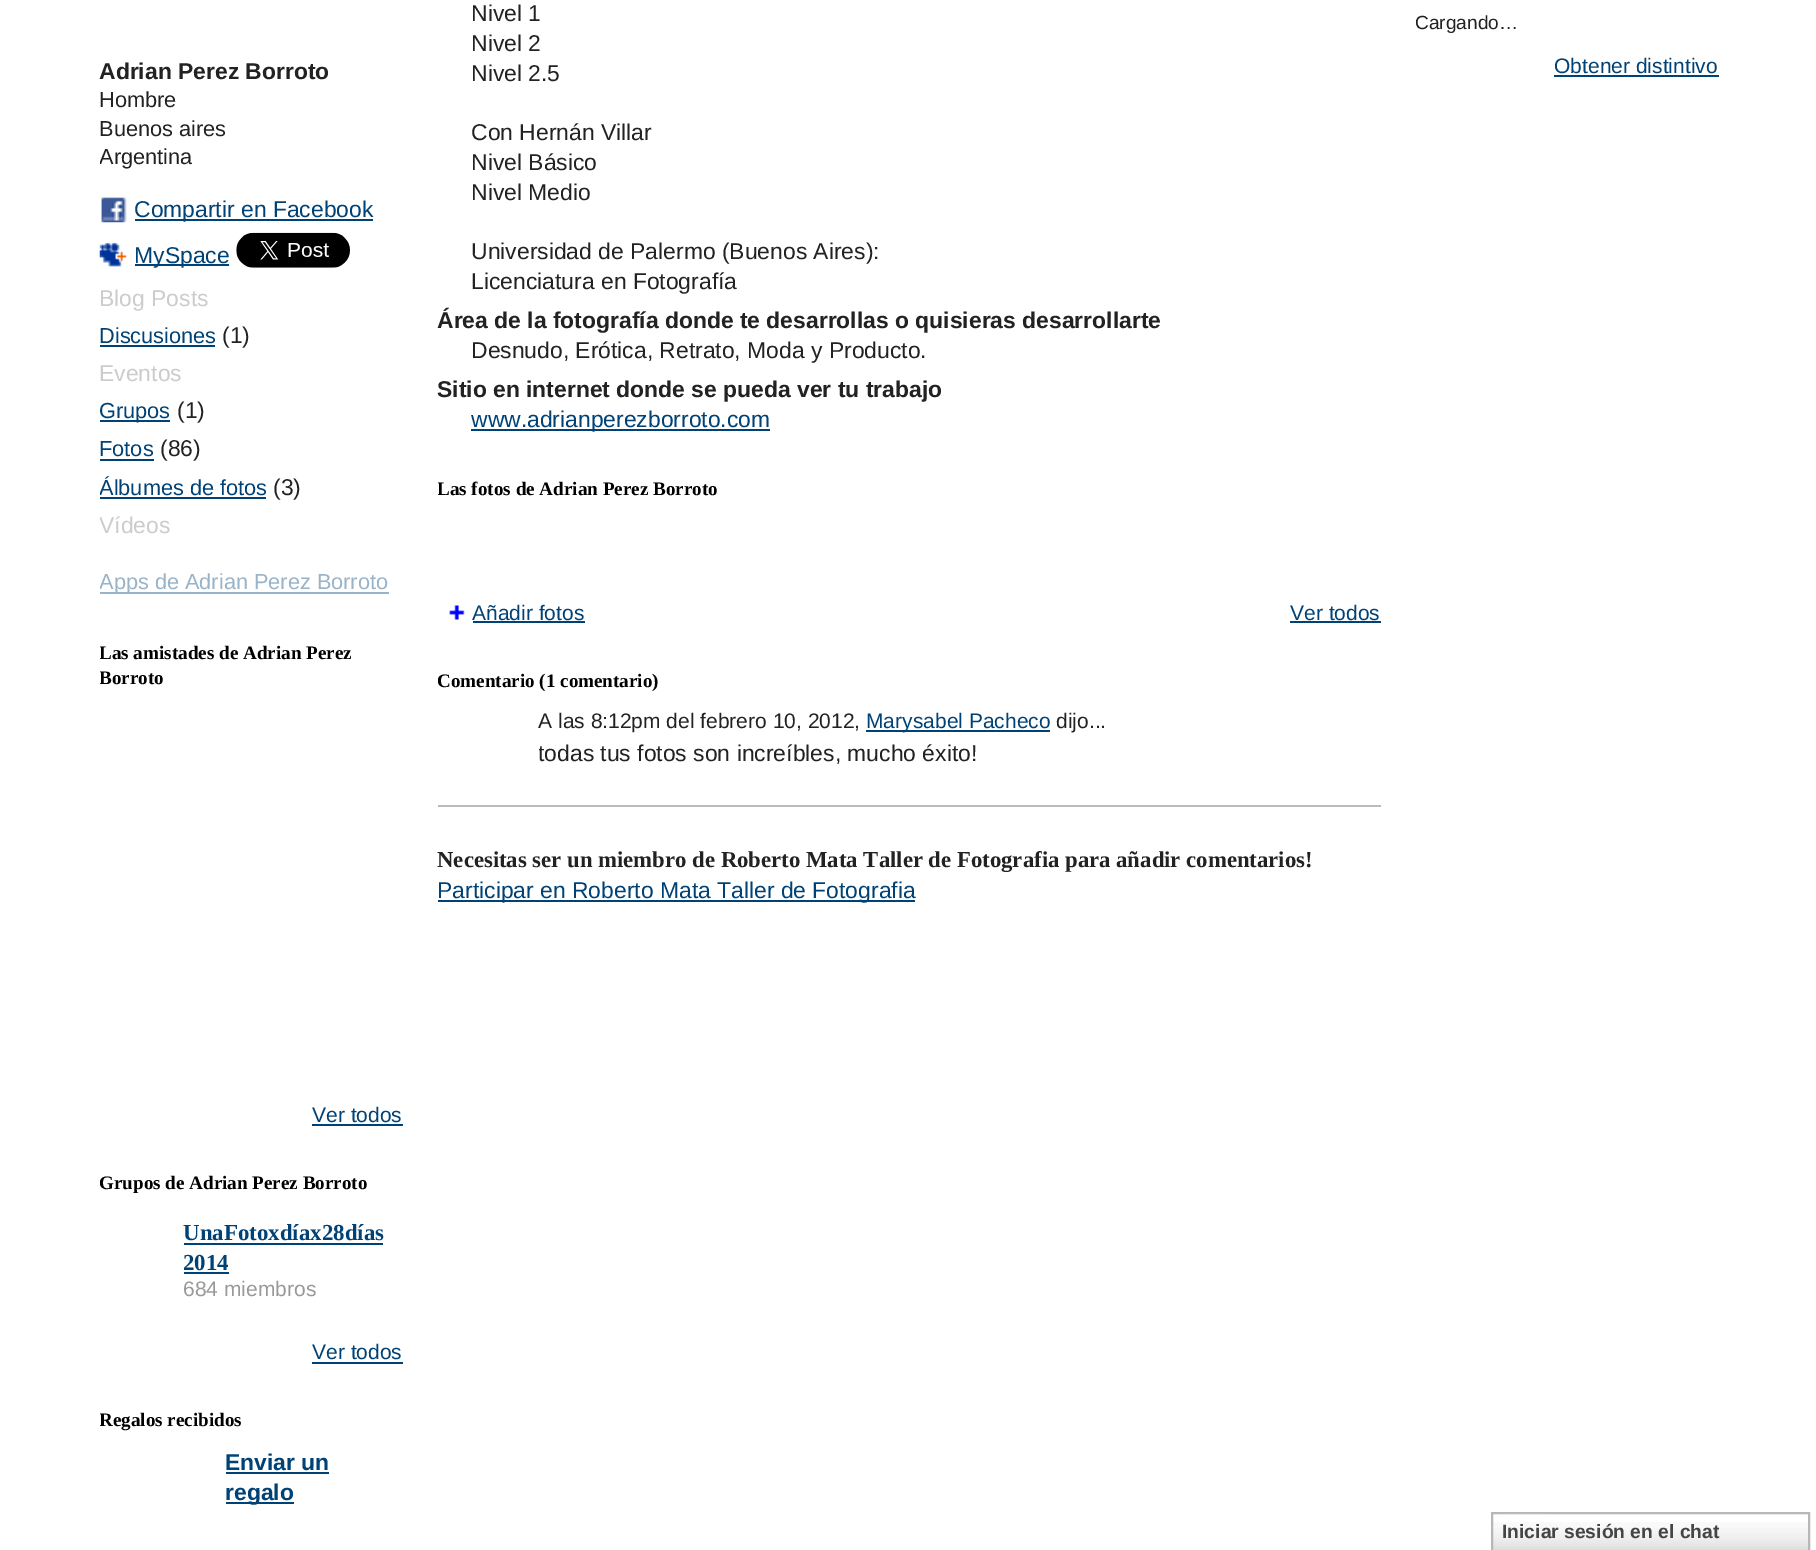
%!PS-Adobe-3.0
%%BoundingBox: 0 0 1816 1550
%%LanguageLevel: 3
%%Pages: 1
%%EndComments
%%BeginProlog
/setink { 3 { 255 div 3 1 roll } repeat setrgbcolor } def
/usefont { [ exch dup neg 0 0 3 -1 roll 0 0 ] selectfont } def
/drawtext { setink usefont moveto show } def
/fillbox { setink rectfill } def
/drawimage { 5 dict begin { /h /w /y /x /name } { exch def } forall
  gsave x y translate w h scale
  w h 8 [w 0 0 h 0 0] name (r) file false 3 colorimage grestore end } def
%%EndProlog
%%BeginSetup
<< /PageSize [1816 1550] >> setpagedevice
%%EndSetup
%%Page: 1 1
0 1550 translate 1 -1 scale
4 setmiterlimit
0 0 1816 1550 255 255 255 fillbox
(Adrian Perez Borroto) 99 79 /LiberationSans-Bold 22.9 34 34 34 drawtext
(Hombre) 99 107 /LiberationSans-Regular 21.75 34 34 34 drawtext
(Buenos aires) 99 136 /LiberationSans-Regular 21.75 34 34 34 drawtext
gsave
100 56 303 126 rectclip
(Argentina) 99 164 /LiberationSans-Regular 21.75 34 34 34 drawtext
grestore
(assets/img1.rgb) 101 197 26 26 drawimage
135 219 238 2 0 66 118 fillbox
(Compartir en Facebook) 134 217 /LiberationSans-Regular 22.9 0 66 118 drawtext
(assets/img2.rgb) 99 242 28 25 drawimage
135 264 94 2 0 66 118 fillbox
(MySpace) 134 263 /LiberationSans-Regular 22.9 0 66 118 drawtext
(assets/img3.rgb) 236 232 114 36 drawimage
(Blog Posts) 99 306 /LiberationSans-Regular 22.9 204 204 204 drawtext
(Discusiones) 99 343 /LiberationSans-Regular 21.75 0 66 118 drawtext
100 345 115 2 0 66 118 fillbox
(\(1\)) 222 343 /LiberationSans-Regular 22.9 34 34 34 drawtext
(Eventos) 99 381 /LiberationSans-Regular 22.9 204 204 204 drawtext
100 420 70 2 0 66 118 fillbox
(Grupos) 99 418 /LiberationSans-Regular 21.75 0 66 118 drawtext
(\(1\)) 177 418 /LiberationSans-Regular 22.9 34 34 34 drawtext
(Fotos) 99 456 /LiberationSans-Regular 21.75 0 66 118 drawtext
100 459 54 2 0 66 118 fillbox
(\(86\)) 160 456 /LiberationSans-Regular 22.9 34 34 34 drawtext
gsave
100 474 303 28 rectclip
(Álbumes de fotos) 99 495 /LiberationSans-Regular 21.75 0 66 118 drawtext
grestore
100 497 166 2 0 66 118 fillbox
(\(3\)) 273 495 /LiberationSans-Regular 22.9 34 34 34 drawtext
gsave
100 513 303 26 rectclip
(Vídeos) 99 533 /LiberationSans-Regular 22.9 204 204 204 drawtext
grestore
100 592 289 2 153 179 200 fillbox
gsave
100 569 303 28 rectclip
(Apps de Adrian Perez Borroto) 99 589 /LiberationSans-Regular 21.75 153 179 200 drawtext
grestore
gsave
100 641 303 49 rectclip
(Las amistades de Adrian Perez) 99 659 /LiberationSerif-Bold 19.1 0 0 0 drawtext
(Borroto) 99 684 /LiberationSerif-Bold 19.1 0 0 0 drawtext
grestore
(Ver todos) 312 1122 /LiberationSans-Regular 21 0 66 118 drawtext
312 1124 91 2 0 66 118 fillbox
gsave
100 1169 268 26 rectclip
(Grupos de Adrian Perez Borroto) 99 1189 /LiberationSerif-Bold 19.1 0 0 0 drawtext
grestore
(UnaFotoxdíax28días) 183 1240 /LiberationSerif-Bold 22.9 0 66 118 drawtext
184 1243 199 2 0 66 118 fillbox
(2014) 183 1270 /LiberationSerif-Bold 22.9 0 66 118 drawtext
184 1272 45 2 0 66 118 fillbox
(684 miembros) 183 1296 /LiberationSans-Regular 21 153 153 153 drawtext
(Ver todos) 312 1359 /LiberationSans-Regular 21 0 66 118 drawtext
312 1362 91 2 0 66 118 fillbox
gsave
100 1407 142 25 rectclip
(Regalos recibidos) 99 1426 /LiberationSerif-Bold 19.1 0 0 0 drawtext
grestore
(Enviar un) 225 1470 /LiberationSans-Bold 22.9 0 66 118 drawtext
226 1472 103 2 0 66 118 fillbox
226 1502 68 2 0 66 118 fillbox
(regalo) 225 1500 /LiberationSans-Bold 22.9 0 66 118 drawtext
(Nivel 1) 471 21 /LiberationSans-Regular 22.9 34 34 34 drawtext
(Nivel 2) 471 51 /LiberationSans-Regular 22.9 34 34 34 drawtext
(Nivel 2.5) 471 81 /LiberationSans-Regular 22.9 34 34 34 drawtext
(Con Hernán Villar) 471 140 /LiberationSans-Regular 22.9 34 34 34 drawtext
(Nivel Básico) 471 170 /LiberationSans-Regular 22.9 34 34 34 drawtext
(Nivel Medio) 471 200 /LiberationSans-Regular 22.9 34 34 34 drawtext
(Universidad de Palermo \(Buenos Aires\):) 471 259 /LiberationSans-Regular 22.9 34 34 34 drawtext
(Licenciatura en Fotografía) 471 289 /LiberationSans-Regular 22.9 34 34 34 drawtext
(Área de la fotografía donde te desarrollas o quisieras desarrollarte) 437 328 /LiberationSans-Bold 22.9 34 34 34 drawtext
(Desnudo, Erótica, Retrato, Moda y Producto.) 471 358 /LiberationSans-Regular 22.9 34 34 34 drawtext
(Sitio en internet donde se pueda ver tu trabajo) 437 397 /LiberationSans-Bold 22.9 34 34 34 drawtext
471 429 299 2 0 66 118 fillbox
(www.adrianperezborroto.com) 471 427 /LiberationSans-Regular 22.9 0 66 118 drawtext
gsave
438 476 280 25 rectclip
(Las fotos de Adrian Perez Borroto) 437 495 /LiberationSerif-Bold 19.1 0 0 0 drawtext
grestore
(assets/img4.rgb) 449 605 16 15 drawimage
(Añadir fotos) 472 620 /LiberationSans-Regular 21 0 66 118 drawtext
473 621 112 2 0 66 118 fillbox
(Ver todos) 1290 620 /LiberationSans-Regular 21 0 66 118 drawtext
1290 621 91 2 0 66 118 fillbox
gsave
438 669 220 24 rectclip
(Comentario \(1 comentario\)) 437 687 /LiberationSerif-Bold 19.1 0 0 0 drawtext
grestore
438 805 943 2 187 187 187 fillbox
(A las 8:12pm del febrero 10, 2012,) 538 728 /LiberationSans-Regular 21 34 34 34 drawtext
866 730 184 2 0 66 118 fillbox
(Marysabel Pacheco) 866 728 /LiberationSans-Regular 21 0 66 118 drawtext
(dijo...) 1056 728 /LiberationSans-Regular 21 34 34 34 drawtext
gsave
539 739 781 31 rectclip
(todas tus fotos son increíbles, mucho éxito!) 538 761 /LiberationSans-Regular 22.9 34 34 34 drawtext
grestore
(Necesitas ser un miembro de Roberto Mata Taller de Fotografia para añadir comentarios!) 437 867 /LiberationSerif-Bold 22.75 34 34 34 drawtext
438 900 477 2 0 66 118 fillbox
(Participar en Roberto Mata Taller de Fotografia) 437 898 /LiberationSans-Regular 22.9 0 66 118 drawtext
(Cargando…) 1415 29 /LiberationSans-Regular 19.1 34 34 34 drawtext
(Obtener distintivo) 1554 73 /LiberationSans-Regular 21 0 66 118 drawtext
1554 75 165 2 0 66 118 fillbox
(assets/img5.rgb) 1493 1522 315 28 drawimage
183 183 183 setink
2 setlinewidth
1492 1513 317 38 rectstroke
1502 1513 46 1 187 187 187 fillbox
(Iniciar sesión en el chat) 1502 1538 /LiberationSans-Bold 19.25 69 69 69 drawtext
showpage
%%EOF
